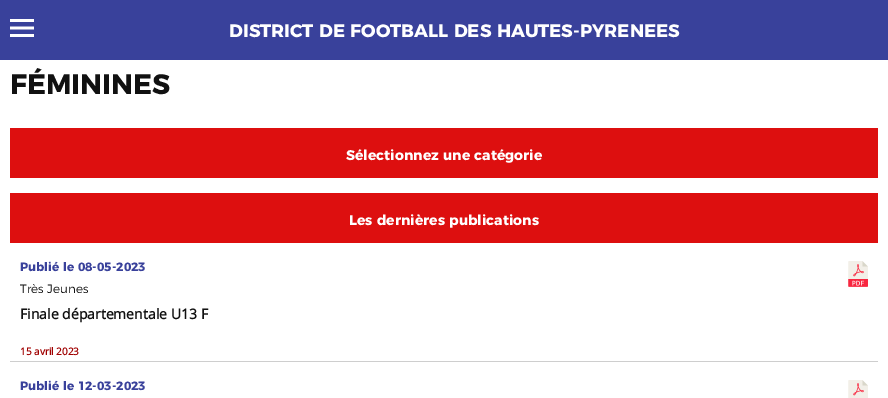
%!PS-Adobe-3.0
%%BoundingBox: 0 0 888 398
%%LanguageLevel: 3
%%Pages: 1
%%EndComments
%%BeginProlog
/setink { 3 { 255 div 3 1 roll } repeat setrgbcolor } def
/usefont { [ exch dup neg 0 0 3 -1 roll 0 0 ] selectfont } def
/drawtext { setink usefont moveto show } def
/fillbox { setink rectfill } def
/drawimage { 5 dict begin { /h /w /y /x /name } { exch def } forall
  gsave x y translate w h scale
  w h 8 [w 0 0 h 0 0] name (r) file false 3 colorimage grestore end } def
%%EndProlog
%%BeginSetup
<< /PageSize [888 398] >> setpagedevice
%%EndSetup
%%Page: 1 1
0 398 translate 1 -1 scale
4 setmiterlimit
0 0 888 398 255 255 255 fillbox
0 0 888 60 57 65 155 fillbox
(assets/img1.rgb) 10 19 24 18 drawimage
(DISTRICT DE FOOTBALL DES HAUTES-PYRENEES) 229 37 /Montserrat-Bold 18 255 255 255 drawtext
(FÉMININES) 10 94 /Montserrat-Bold 28 17 17 17 drawtext
10 128 868 50 221 15 15 fillbox
(Sélectionnez une catégorie) 346 160 /Montserrat-Bold 14 255 255 255 drawtext
10 193 868 50 221 15 15 fillbox
(Les dernières publications) 349 225 /Montserrat-Bold 14 255 255 255 drawtext
10 361 868 1 206 206 206 fillbox
(Publié le 08-05-2023) 20 271 /Montserrat-Bold 12 57 65 155 drawtext
(Très Jeunes) 20 293 /Montserrat-Light 12 17 17 17 drawtext
(assets/img2.rgb) 848 261 20 26 drawimage
(Finale départementale U13 F) 20 319 /OpenSans-Bold 14 17 17 17 drawtext
(15 avril 2023) 20 355 /OpenSans-Bold 10 160 0 0 drawtext
(Publié le 12-03-2023) 20 390 /Montserrat-Bold 12 57 65 155 drawtext
(assets/img3.rgb) 848 380 20 18 drawimage
showpage
%%EOF
